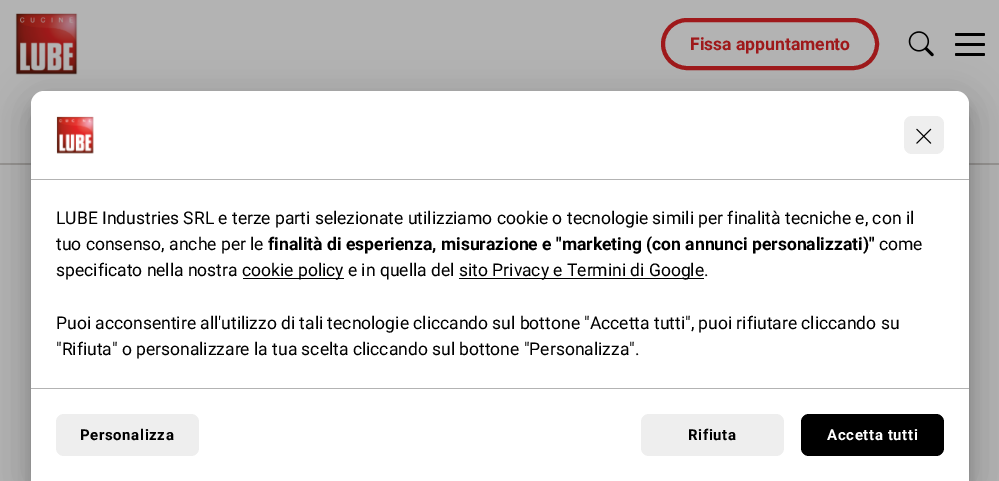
%!PS-Adobe-3.0
%%BoundingBox: 0 0 999 481
%%LanguageLevel: 3
%%Pages: 1
%%EndComments
%%BeginProlog
/setink { 3 { 255 div 3 1 roll } repeat setrgbcolor } def
/usefont { [ exch dup neg 0 0 3 -1 roll 0 0 ] selectfont } def
/drawtext { setink usefont moveto show } def
/fillbox { setink rectfill } def
/setalpha { dup .setfillconstantalpha .setstrokeconstantalpha } def
/rrect { 5 dict begin { /r /h /w /y /x } { exch def } forall
  x r add y moveto x w add y 2 copy h add r arct x w add y h add x 1 index r arct
  x y h add x y r arct x y 2 copy exch w add exch r arct closepath end } def
/softshadow { 12 dict begin { /a /b /q /h /w /y /x } { exch def } forall gsave /was 0 def
  9 -2 -9 { dup b mul 4 div /e exch def 1 sub .425 mul 2.718 exch exp 1 add a .99 .min exch div /now exch def
    1 1 now sub 1 was sub div sub setalpha /was now def
    w h .min e 2 mul add 0 gt { x e sub y e sub w e 2 mul add h e 2 mul add
      q e add b .6 mul add w h .min 2 div e add .min 0 .max rrect fill } if } for grestore end } def
/drawimage { 5 dict begin { /h /w /y /x /name } { exch def } forall
  gsave x y translate w h scale
  w h 8 [w 0 0 h 0 0] name (r) file false 3 colorimage grestore end } def
%%EndProlog
%%BeginSetup
<< /PageSize [999 481] /PageUsesTransparency true >> setpagedevice
%%EndSetup
%%Page: 1 1
0 .pushpdf14devicefilter
0 481 translate 1 -1 scale
4 setmiterlimit
0 0 999 481 179 179 179 fillbox
(assets/img1.rgb) 15 13 63 62 drawimage
159 25 27 setink
4 setlinewidth
663 20 214 48 24 rrect stroke
(Fissa appuntamento) 690 50 /Roboto-Bold 17.5 159 25 27 drawtext
(assets/img2.rgb) 908 31 26 26 drawimage
0 0 0 setink
955 43 30 3 1.5 rrect fill
955 33 30 3 1.5 rrect fill
955 53 30 3 1.5 rrect fill
gsave 0 163 moveto 999 163 lineto 999 165 lineto 0 165 lineto closepath clip newpath
<< /ShadingType 2 /ColorSpace /DeviceRGB /Coords [500 190 500 138] /Extend [true true] /Function << /FunctionType 3 /Domain [0 1] /Functions [<< /FunctionType 2 /Domain [0 1] /C0 [0.702 0.702 0.702] /C1 [0.702 0.702 0.702] /N 1 >> << /FunctionType 2 /Domain [0 1] /C0 [0.592 0.584 0.576] /C1 [0.592 0.584 0.576] /N 1 >> << /FunctionType 2 /Domain [0 1] /C0 [0.702 0.702 0.702] /C1 [0.702 0.702 0.702] /N 1 >>] /Bounds [0.48 0.52] /Encode [0 1 0 1 0 1] >> >> shfill grestore
38 108 925 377 6 6 0.4 softshadow
25 93 950 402 19 19 0.12 softshadow
29 109 942 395 15 15 0.14 softshadow
255 255 255 setink
44 91 moveto 956 91 lineto 963 91 969 97 969 104 curveto 969 481 lineto 31 481 lineto 31 104 lineto 31 97 37 91 44 91 curveto closepath fill
31 179 938 1 179 179 179 fillbox
(assets/img3.rgb) 56 116 38 38 drawimage
238 238 238 setink
904 116 40 38 8 rrect fill
(assets/img4.rgb) 916 128 16 16 drawimage
(LUBE Industries SRL e terze parti selezionate utilizziamo cookie o tecnologie simili per finalità tecniche e, con il) 56 224 /Roboto-Regular 17.5 0 0 0 drawtext
(tuo consenso, anche per le) 56 250 /Roboto-Regular 17.5 0 0 0 drawtext
(finalità di esperienza, misurazione e "marketing \(con annunci personalizzati\)") 268 250 /Roboto-Bold 17.5 0 0 0 drawtext
(come) 879 250 /Roboto-Regular 17.5 0 0 0 drawtext
(specificato nella nostra) 56 276 /Roboto-Regular 17.5 0 0 0 drawtext
243 278 101 1 0 0 0 fillbox
(cookie policy e in quella del) 242 276 /Roboto-Regular 17.5 0 0 0 drawtext
459 278 245 1 0 0 0 fillbox
(sito Privacy e Termini di Google.) 459 276 /Roboto-Regular 17.5 0 0 0 drawtext
(Puoi acconsentire all'utilizzo di tali tecnologie cliccando sul bottone "Accetta tutti", puoi rifiutare cliccando su) 56 329 /Roboto-Regular 17.5 0 0 0 drawtext
("Rifiuta" o personalizzare la tua scelta cliccando sul bottone "Personalizza".) 56 355 /Roboto-Regular 17.5 0 0 0 drawtext
31 388 938 1 179 179 179 fillbox
238 238 238 setink
56 414 143 42 8 rrect fill
/Roboto-Bold 15 usefont
0 0 0 setink
80 440 moveto 0.6 0 (Personalizza) ashow
238 238 238 setink
641 414 143 42 8 rrect fill
0 0 0 setink
688 440 moveto 0.6 0 (Rifiuta) ashow
801 414 143 42 8 rrect fill
255 255 255 setink
827 440 moveto 0.6 0 (Accetta tutti) ashow
.poppdf14devicefilter showpage
%%EOF
